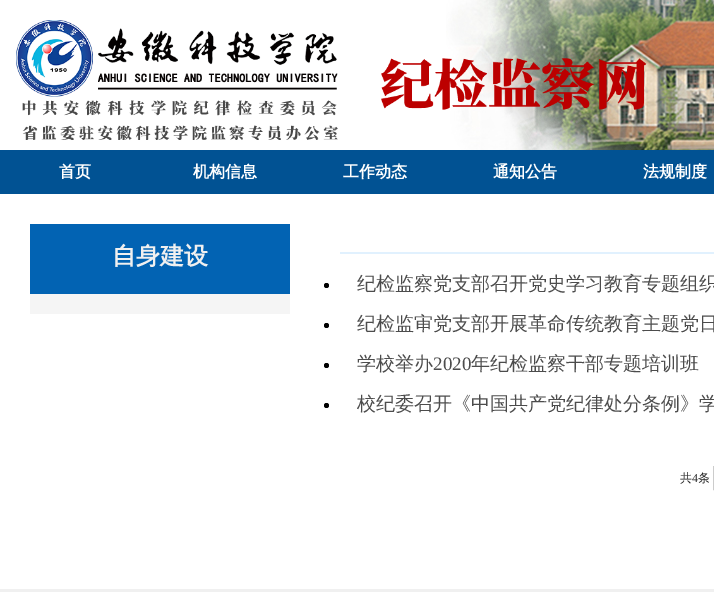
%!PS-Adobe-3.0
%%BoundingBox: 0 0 714 592
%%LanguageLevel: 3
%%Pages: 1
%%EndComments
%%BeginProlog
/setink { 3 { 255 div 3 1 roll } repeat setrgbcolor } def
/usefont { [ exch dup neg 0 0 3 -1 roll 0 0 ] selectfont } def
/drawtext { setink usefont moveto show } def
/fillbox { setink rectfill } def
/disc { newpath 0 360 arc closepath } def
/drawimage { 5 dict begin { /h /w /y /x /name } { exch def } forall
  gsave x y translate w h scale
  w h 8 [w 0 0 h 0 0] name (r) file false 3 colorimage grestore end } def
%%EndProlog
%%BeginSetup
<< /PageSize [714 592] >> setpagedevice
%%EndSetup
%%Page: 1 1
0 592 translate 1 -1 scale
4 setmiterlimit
0 0 714 592 255 255 255 fillbox
(assets/img1.rgb) 446 0 268 150 drawimage
(assets/img2.rgb) 16 20 631 120 drawimage
0 150 714 44 1 82 147 fillbox
(首页) 59 177 /WenQuanYiZenHei-Bold 16 255 255 255 drawtext
(机构信息) 193 177 /WenQuanYiZenHei-Bold 16 255 255 255 drawtext
(工作动态) 343 177 /WenQuanYiZenHei-Bold 16 255 255 255 drawtext
(通知公告) 493 177 /WenQuanYiZenHei-Bold 16 255 255 255 drawtext
(法规制度) 643 177 /WenQuanYiZenHei-Bold 16 255 255 255 drawtext
0 589 714 3 240 240 240 fillbox
30 224 260 70 2 99 179 fillbox
(自身建设) 112 264 /WenQuanYiZenHei-Bold 24 240 240 240 drawtext
30 294 260 20 245 245 245 fillbox
340 252 374 2 225 241 254 fillbox
0 0 0 setink
326.5 285.5 2.5 disc fill
(纪检监察党支部召开党史学习教育专题组织) 357 290 /WenQuanYiZenHei-Medium 19 76 76 76 drawtext
0 0 0 setink
326.5 325.5 2.5 disc fill
(纪检监审党支部开展革命传统教育主题党日) 357 330 /WenQuanYiZenHei-Medium 19 76 76 76 drawtext
0 0 0 setink
326.5 365.5 2.5 disc fill
(学校举办) 357 370 /WenQuanYiZenHei-Medium 19 76 76 76 drawtext
(2020) 433 370 /LiberationSerif-Regular 19 76 76 76 drawtext
(年纪检监察干部专题培训班) 471 370 /WenQuanYiZenHei-Medium 19 76 76 76 drawtext
0 0 0 setink
326.5 405.5 2.5 disc fill
(校纪委召开《中国共产党纪律处分条例》学) 357 410 /WenQuanYiZenHei-Medium 19 76 76 76 drawtext
(共) 680 482 /WenQuanYiZenHei-Medium 12 34 34 34 drawtext
(4) 692 482 /LiberationSerif-Regular 12 34 34 34 drawtext
(条) 698 482 /WenQuanYiZenHei-Medium 12 34 34 34 drawtext
204 204 204 setink
713.5 466.5 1 23 rectstroke
showpage
%%EOF
